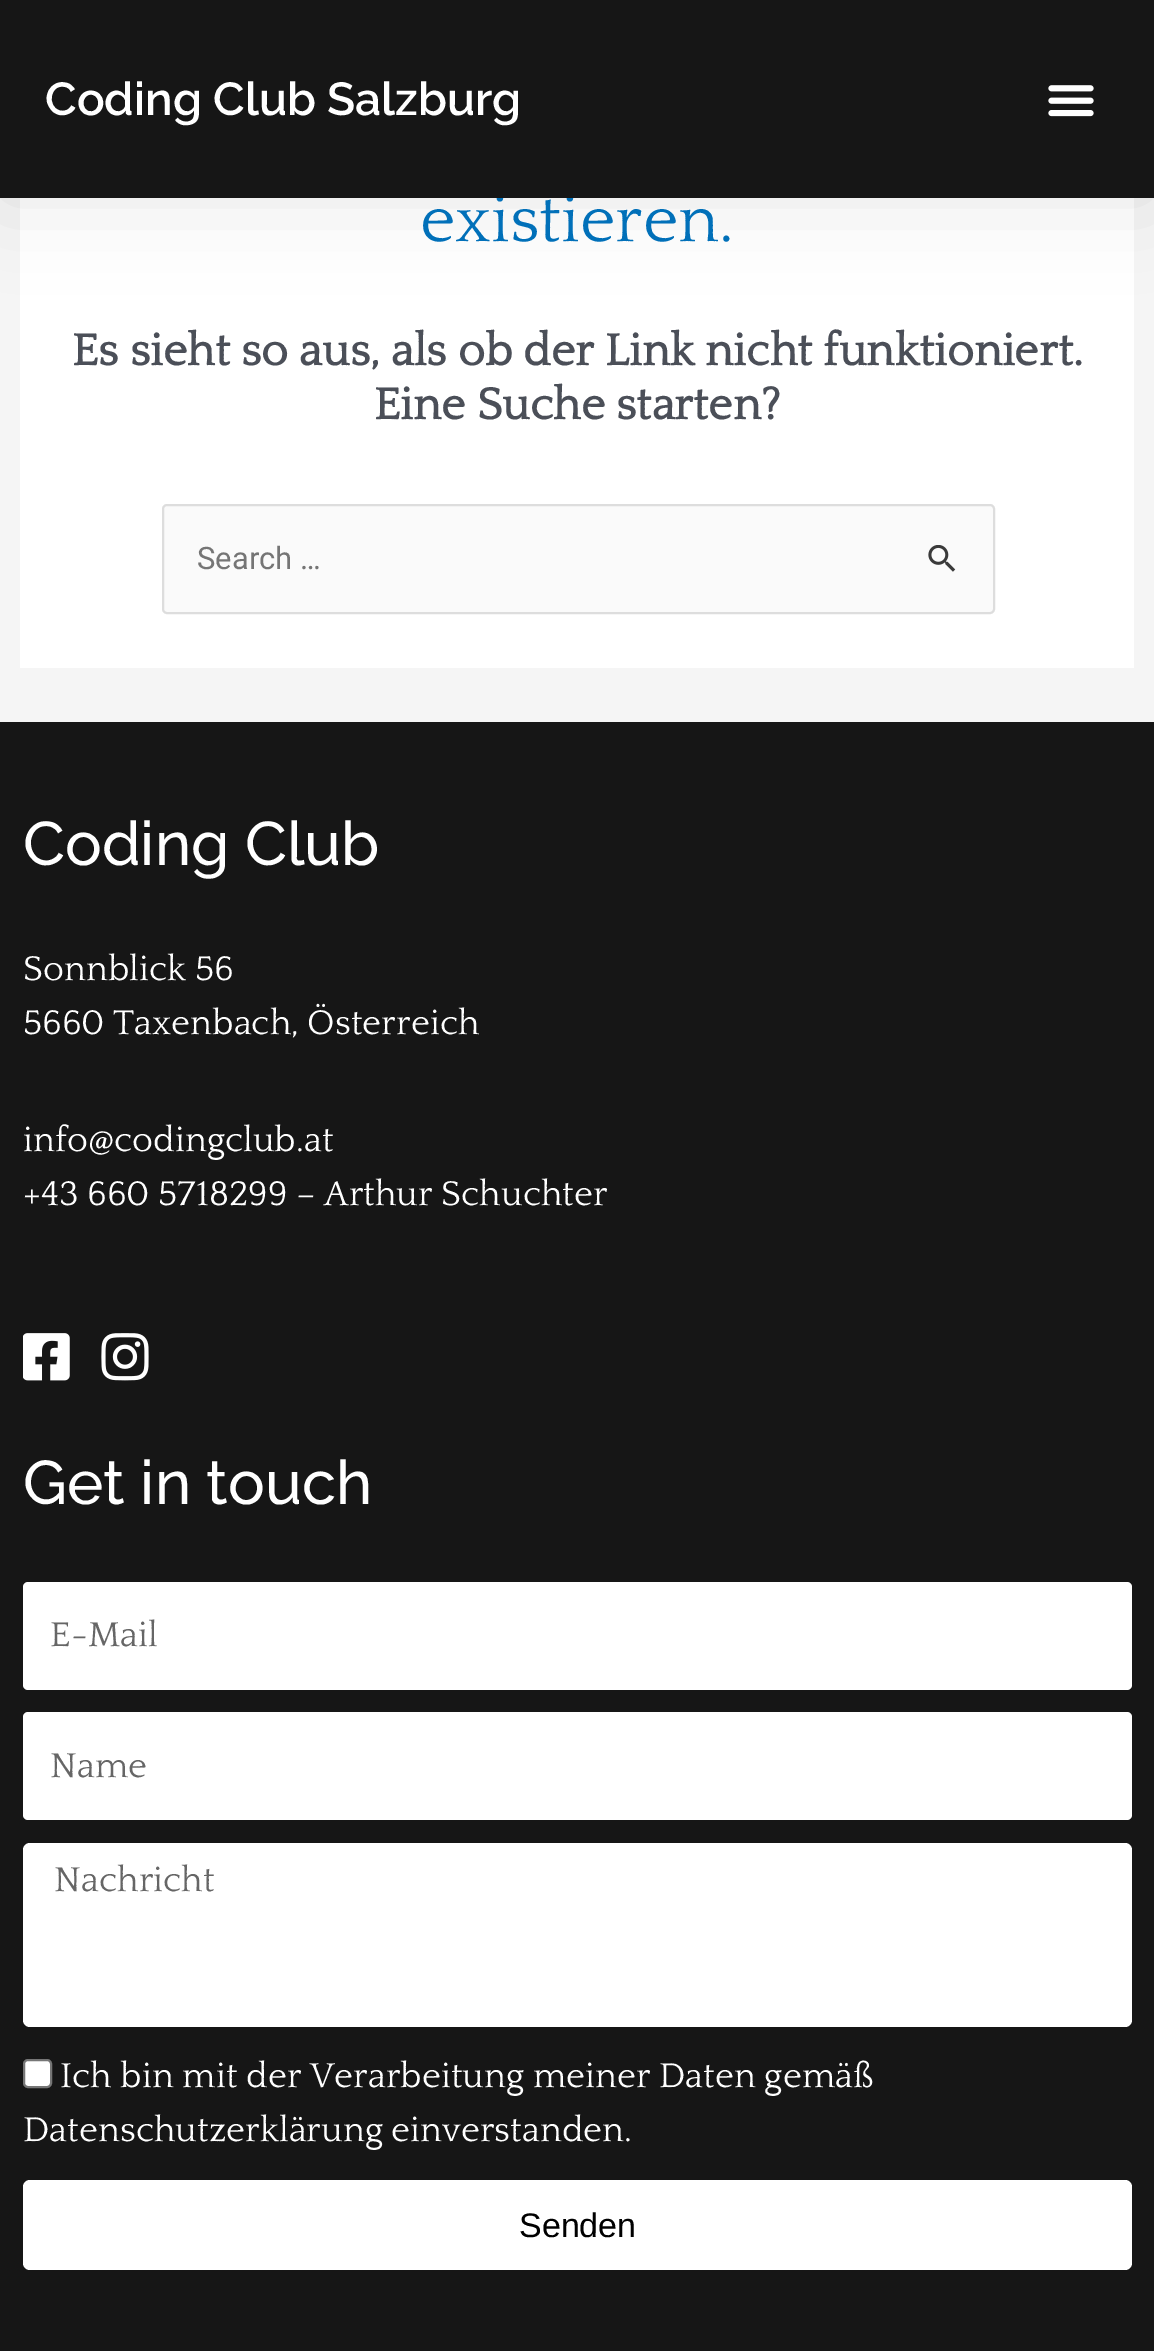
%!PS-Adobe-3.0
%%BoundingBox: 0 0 1154 2351
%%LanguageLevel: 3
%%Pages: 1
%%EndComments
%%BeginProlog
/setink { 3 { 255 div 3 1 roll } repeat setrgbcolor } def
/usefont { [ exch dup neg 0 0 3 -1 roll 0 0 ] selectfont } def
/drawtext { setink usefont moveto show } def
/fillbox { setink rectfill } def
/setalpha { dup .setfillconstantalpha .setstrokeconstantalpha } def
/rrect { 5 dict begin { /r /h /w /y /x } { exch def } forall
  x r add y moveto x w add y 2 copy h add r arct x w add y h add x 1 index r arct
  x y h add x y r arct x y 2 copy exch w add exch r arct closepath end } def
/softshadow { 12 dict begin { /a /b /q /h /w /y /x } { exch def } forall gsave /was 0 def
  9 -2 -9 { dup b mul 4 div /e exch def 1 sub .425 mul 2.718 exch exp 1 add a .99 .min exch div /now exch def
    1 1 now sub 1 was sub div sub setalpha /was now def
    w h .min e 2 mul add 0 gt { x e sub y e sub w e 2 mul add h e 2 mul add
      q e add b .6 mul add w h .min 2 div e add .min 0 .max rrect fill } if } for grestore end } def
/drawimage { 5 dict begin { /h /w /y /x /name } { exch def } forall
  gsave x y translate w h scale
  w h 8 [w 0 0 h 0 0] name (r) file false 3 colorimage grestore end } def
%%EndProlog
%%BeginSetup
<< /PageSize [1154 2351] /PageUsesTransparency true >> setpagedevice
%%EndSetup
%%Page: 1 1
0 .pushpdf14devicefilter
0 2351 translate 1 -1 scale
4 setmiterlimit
0 0 1154 2351 245 245 245 fillbox
20 198 1114 470 255 255 255 fillbox
0 0 0 setink
0 0 1154 198 0 43 0.1 softshadow
(existieren.) 420 241 /Quattrocento-Regular 67.5 1 112 185 drawtext
0 0 1154 198 22 22 22 fillbox
(Coding Club Salzburg) 45 115 /Raleway-SemiBold 46.2 255 255 255 drawtext
(assets/img1.rgb) 1048 85 46 32 drawimage
(Es sieht so aus, als ob der Link nicht funktioniert.) 72 365 /Quattrocento-Bold 46.2 75 79 88 drawtext
(Eine Suche starten?) 374 419 /Quattrocento-Bold 46.2 75 79 88 drawtext
250 250 250 setink
163 505 831 108 4 rrect gsave fill grestore
221 221 221 setink
2 setlinewidth
stroke
(Search …) 197 569 /Roboto-Regular 31 117 117 117 drawtext
(assets/img2.rgb) 928 545 28 27 drawimage
0 722 1154 1629 22 22 22 fillbox
(Coding Club) 23 865 /Raleway-Medium 61.5 255 255 255 drawtext
(Sonnblick 56) 23 980 /Quattrocento-Regular 36 255 255 255 drawtext
(5660 Taxenbach, Österreich) 23 1034 /Quattrocento-Regular 36 255 255 255 drawtext
(info@codingclub.at) 23 1151 /Quattrocento-Regular 36 255 255 255 drawtext
(+43 660 5718299 – Arthur Schuchter) 23 1205 /Quattrocento-Regular 36 255 255 255 drawtext
(assets/img3.rgb) 23 1333 47 48 drawimage
(assets/img4.rgb) 101 1333 48 48 drawimage
(Get in touch) 23 1504 /Raleway-Medium 61.5 255 255 255 drawtext
23 1582 1109 108 5 rrect fill
(E-Mail) 50 1646 /Quattrocento-Regular 36 102 102 102 drawtext
255 255 255 setink
23 1712 1109 108 5 rrect fill
(Name) 50 1777 /Quattrocento-Regular 36 102 102 102 drawtext
255 255 255 setink
23 1843 1109 184 7 rrect fill
(Nachricht) 54 1891 /Quattrocento-Regular 36 102 102 102 drawtext
255 255 255 setink
24 2060 27 27 4 rrect gsave fill grestore
118 118 118 setink
stroke
(Ich bin mit der Verarbeitung meiner Daten gemäß) 60 2087 /Quattrocento-Regular 36 255 255 255 drawtext
(Datenschutzerklärung einverstanden.) 23 2141 /Quattrocento-Regular 36 255 255 255 drawtext
23 2180 1109 90 7 rrect fill
(Senden) 519 2237 /LiberationSans-Regular 34 0 0 0 drawtext
.poppdf14devicefilter showpage
%%EOF
